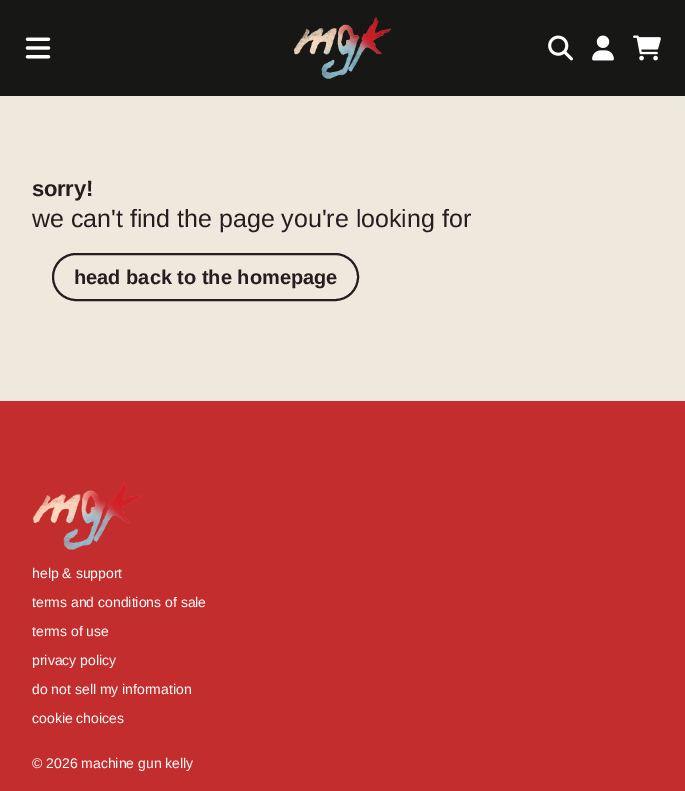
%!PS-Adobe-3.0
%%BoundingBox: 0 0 685 791
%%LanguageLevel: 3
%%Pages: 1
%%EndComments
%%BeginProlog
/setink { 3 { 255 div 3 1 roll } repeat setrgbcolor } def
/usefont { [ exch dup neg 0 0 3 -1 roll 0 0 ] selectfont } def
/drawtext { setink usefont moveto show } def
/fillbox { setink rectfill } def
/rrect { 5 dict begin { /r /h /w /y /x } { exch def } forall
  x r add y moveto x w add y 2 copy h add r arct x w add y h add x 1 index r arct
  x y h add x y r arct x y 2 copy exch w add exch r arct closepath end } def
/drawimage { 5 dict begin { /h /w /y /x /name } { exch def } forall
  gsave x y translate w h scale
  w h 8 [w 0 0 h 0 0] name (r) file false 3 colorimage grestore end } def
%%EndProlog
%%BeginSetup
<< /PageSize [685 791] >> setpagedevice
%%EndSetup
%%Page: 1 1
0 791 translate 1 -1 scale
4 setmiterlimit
0 0 685 791 239 232 220 fillbox
0 0 685 96 23 24 22 fillbox
(assets/img1.rgb) 25 37 26 22 drawimage
(assets/img2.rgb) 293 17 99 62 drawimage
(assets/img3.rgb) 548 35 25 26 drawimage
(assets/img4.rgb) 592 35 22 26 drawimage
(assets/img5.rgb) 633 35 28 26 drawimage
/LiberationSans-Bold 22 usefont
35 31 32 setink
32 196 moveto -0.25 0 (sorry!) ashow
(we can't find the page you're looking for) 32 227 /LiberationSans-Regular 25 35 31 32 drawtext
2 setlinewidth
53 254 305 46 23 rrect stroke
(head back to the homepage) 74 284 /LiberationSans-Bold 20 35 31 32 drawtext
0 401 685 390 196 45 45 fillbox
(assets/img6.rgb) 32 482 109 68 drawimage
(help & support) 32 578 /LiberationSans-Regular 14 255 255 255 drawtext
(terms and conditions of sale) 32 607 /LiberationSans-Regular 14 255 255 255 drawtext
(terms of use) 32 636 /LiberationSans-Regular 14 255 255 255 drawtext
(privacy policy) 32 665 /LiberationSans-Regular 14 255 255 255 drawtext
(do not sell my information) 32 694 /LiberationSans-Regular 14 255 255 255 drawtext
(cookie choices) 32 723 /LiberationSans-Regular 14 255 255 255 drawtext
(© 2026 machine gun kelly) 32 768 /LiberationSans-Regular 14 255 255 255 drawtext
showpage
%%EOF
